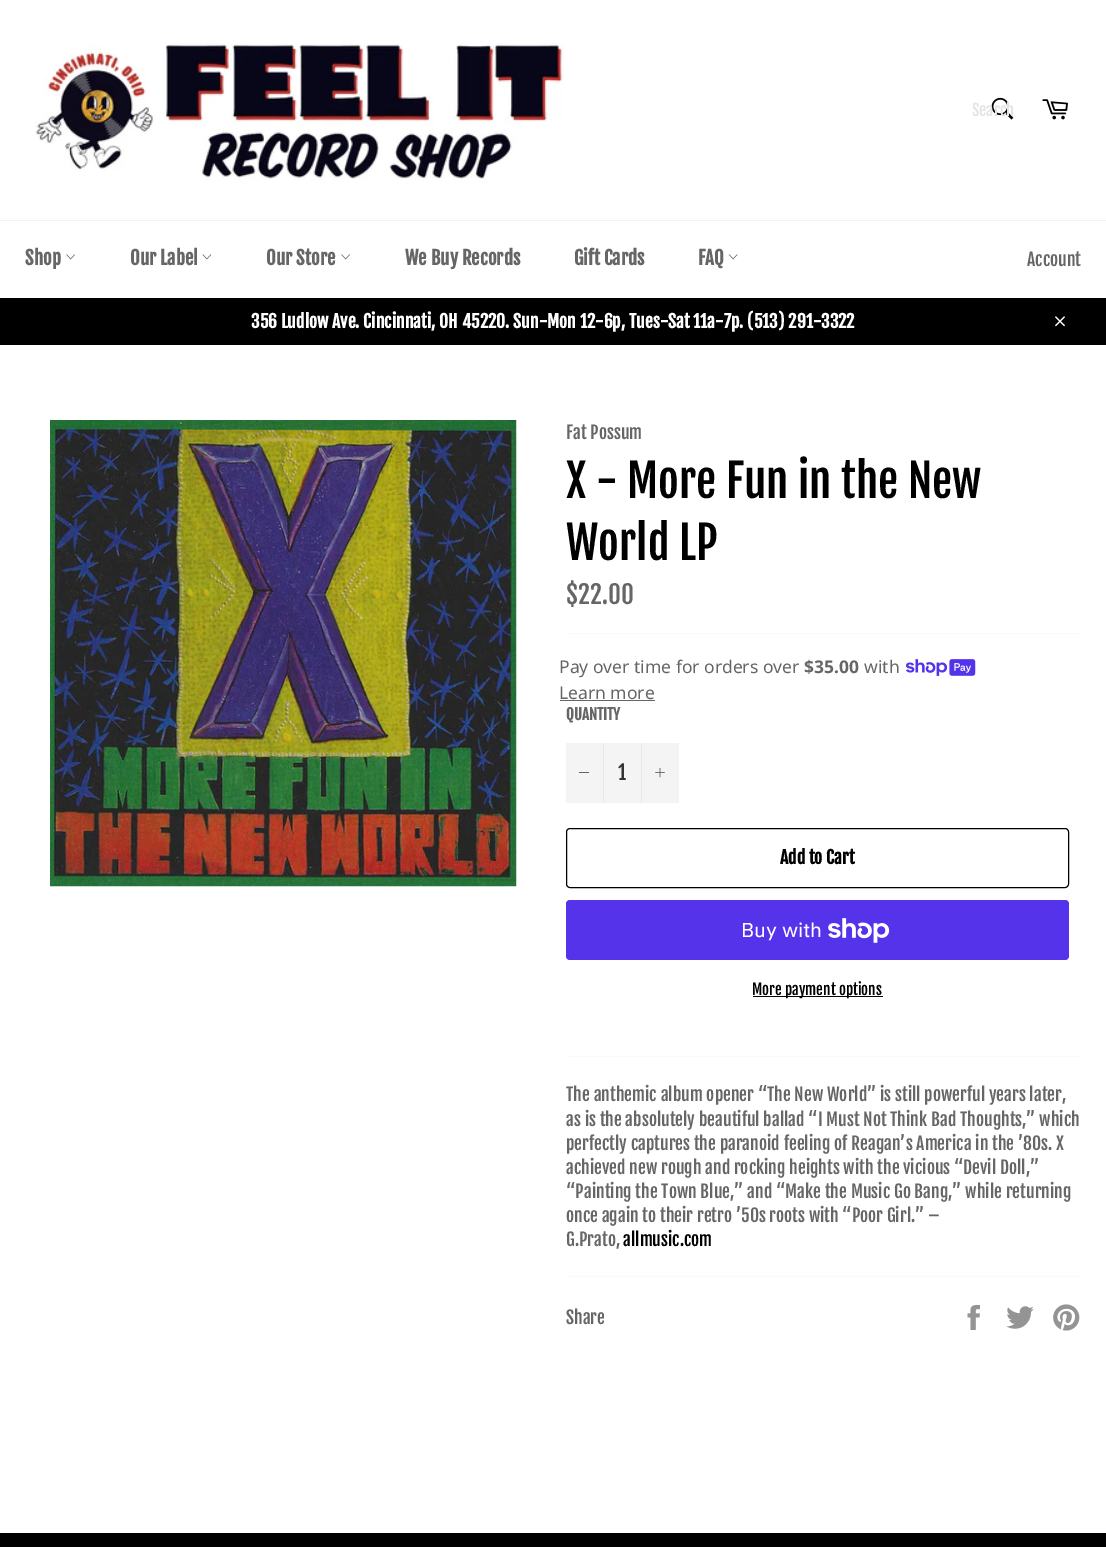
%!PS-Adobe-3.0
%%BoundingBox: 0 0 1106 1547
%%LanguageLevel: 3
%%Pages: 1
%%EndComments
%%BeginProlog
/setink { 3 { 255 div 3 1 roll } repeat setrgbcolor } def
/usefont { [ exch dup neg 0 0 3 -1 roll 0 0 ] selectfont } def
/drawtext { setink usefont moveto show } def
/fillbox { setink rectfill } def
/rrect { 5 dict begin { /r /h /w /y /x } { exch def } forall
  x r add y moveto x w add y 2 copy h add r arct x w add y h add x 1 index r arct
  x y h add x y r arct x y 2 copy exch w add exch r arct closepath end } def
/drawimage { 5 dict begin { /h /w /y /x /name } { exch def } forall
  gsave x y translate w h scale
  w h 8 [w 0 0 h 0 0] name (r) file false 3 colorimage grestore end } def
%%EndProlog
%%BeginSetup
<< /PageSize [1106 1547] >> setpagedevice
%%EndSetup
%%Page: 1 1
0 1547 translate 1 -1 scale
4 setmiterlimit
0 0 1106 1547 255 255 255 fillbox
(assets/img1.rgb) 35 43 530 142 drawimage
(assets/img2.rgb) 991 97 23 23 drawimage
gsave
973 100 40 20 rectclip
(Search) 972 116 /FjallaOne-Regular 16 228 228 228 drawtext
grestore
(assets/img3.rgb) 1042 99 26 21 drawimage
0 220 1106 1 242 242 242 fillbox
(Shop) 25 265 /FjallaOne-Bold 18.75 102 102 102 drawtext
(assets/img4.rgb) 66 254 9 6 drawimage
(Our Label) 130 265 /FjallaOne-Bold 18.75 102 102 102 drawtext
(assets/img5.rgb) 202 254 10 6 drawimage
(Our Store) 266 265 /FjallaOne-Bold 18.75 102 102 102 drawtext
(assets/img4.rgb) 341 254 9 6 drawimage
(We Buy Records) 405 265 /FjallaOne-Bold 18.75 102 102 102 drawtext
(Gift Cards) 574 265 /FjallaOne-Bold 18.75 102 102 102 drawtext
(FAQ) 698 265 /FjallaOne-Bold 18.75 102 102 102 drawtext
(assets/img6.rgb) 728 254 10 6 drawimage
(Account) 1027 266 /FjallaOne-Regular 17.5 102 102 102 drawtext
0 298 1106 47 0 0 0 fillbox
(356 Ludlow Ave. Cincinnati, OH 45220. Sun-Mon 12-6p, Tues-Sat 11a-7p. \(513\) 291-3322) 251 328 /FjallaOne-Bold 17.5 255 255 255 drawtext
(assets/img7.rgb) 1055 316 10 11 drawimage
(assets/img8.rgb) 50 420 467 467 drawimage
(Fat Possum) 566 439 /FjallaOne-Regular 17.5 102 102 102 drawtext
(X - More Fun in the New) 566 498 /FjallaOne-Regular 45 0 0 0 drawtext
(World LP) 566 560 /FjallaOne-Regular 45 0 0 0 drawtext
($22.00) 566 604 /FjallaOne-Regular 25 102 102 102 drawtext
566 633 515 1 250 250 250 fillbox
(Pay over time for orders over) 559 673 /NotoSans-Regular 17.5 102 102 102 drawtext
($35.00) 804 673 /NotoSans-Bold 17.5 102 102 102 drawtext
(with) 864 673 /NotoSans-Regular 17.5 102 102 102 drawtext
(assets/img9.rgb) 906 659 70 17 drawimage
(Learn more) 559 699 /NotoSans-Regular 17.5 102 102 102 drawtext
560 700 95 1 102 102 102 fillbox
(QUANTITY) 566 720 /FjallaOne-Bold 15 102 102 102 drawtext
566 743 113 60 244 244 244 fillbox
603 743 1 60 231 231 231 fillbox
579 772 10 1 102 102 102 fillbox
(1) 618 780 /FjallaOne-Regular 20 51 51 51 drawtext
641 743 1 60 231 231 231 fillbox
(assets/img10.rgb) 655 768 10 10 drawimage
0 0 0 setink
566.5 828.5 502 59 3.5 rrect stroke
(Add to Cart) 780 864 /FjallaOne-Bold 17.5 0 0 0 drawtext
84 51 235 setink
566 900 503 60 4 rrect fill
(Buy with) 741 937 /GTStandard-Regular 20 255 255 255 drawtext
(assets/img11.rgb) 828 918 62 25 drawimage
753 996 130 1 0 0 0 fillbox
(More payment options) 752 995 /FjallaOne-Regular 15 0 0 0 drawtext
566 1056 515 1 250 250 250 fillbox
(The anthemic album opener “The New World” is still powerful years later,) 566 1101 /FjallaOne-Regular 17.5 102 102 102 drawtext
(as is the absolutely beautiful ballad “I Must Not Think Bad Thoughts,” which) 566 1126 /FjallaOne-Regular 17.5 102 102 102 drawtext
(perfectly captures the paranoid feeling of Reagan’s America in the ’80s. X) 566 1150 /FjallaOne-Regular 17.5 102 102 102 drawtext
(achieved new rough and rocking heights with the vicious “Devil Doll,”) 566 1174 /FjallaOne-Regular 17.5 102 102 102 drawtext
(“Painting the Town Blue,” and “Make the Music Go Bang,” while returning) 566 1198 /FjallaOne-Regular 17.5 102 102 102 drawtext
(once again to their retro ’50s roots with “Poor Girl.” –) 566 1222 /FjallaOne-Regular 17.5 102 102 102 drawtext
(G.Prato,) 566 1246 /FjallaOne-Regular 17.5 102 102 102 drawtext
(allmusic.com) 623 1246 /FjallaOne-Regular 17.5 0 0 0 drawtext
566 1276 515 1 250 250 250 fillbox
(Share) 566 1324 /FjallaOne-Regular 17.5 102 102 102 drawtext
(assets/img12.rgb) 967 1305 13 25 drawimage
(assets/img13.rgb) 1006 1306 28 23 drawimage
(assets/img14.rgb) 1053 1304 27 27 drawimage
0 1533 1106 14 0 0 0 fillbox
showpage
%%EOF
